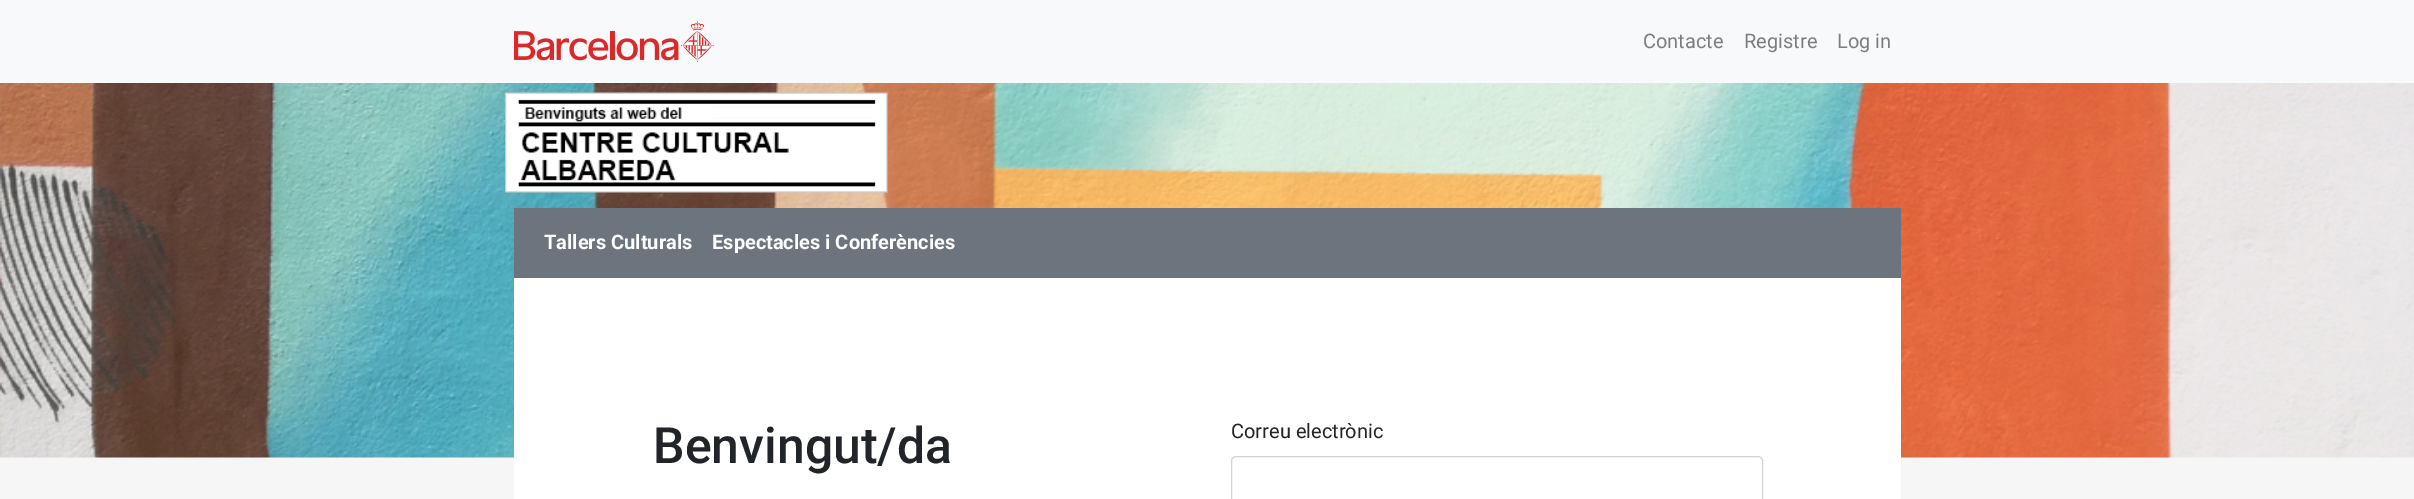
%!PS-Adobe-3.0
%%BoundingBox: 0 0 2414 499
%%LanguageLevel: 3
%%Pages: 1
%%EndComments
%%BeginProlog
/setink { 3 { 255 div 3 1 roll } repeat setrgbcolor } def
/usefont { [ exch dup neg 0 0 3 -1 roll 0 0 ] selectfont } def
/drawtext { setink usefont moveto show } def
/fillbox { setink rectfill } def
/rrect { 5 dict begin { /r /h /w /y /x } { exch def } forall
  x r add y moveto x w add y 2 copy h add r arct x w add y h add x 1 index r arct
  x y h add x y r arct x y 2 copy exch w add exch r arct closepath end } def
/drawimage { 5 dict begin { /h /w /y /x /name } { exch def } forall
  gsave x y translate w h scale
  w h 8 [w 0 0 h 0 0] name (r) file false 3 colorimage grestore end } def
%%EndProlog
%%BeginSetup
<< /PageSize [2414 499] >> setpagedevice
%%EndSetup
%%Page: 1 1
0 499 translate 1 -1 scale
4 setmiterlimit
0 0 2414 499 246 246 246 fillbox
0 0 2414 83 248 249 250 fillbox
(assets/img1.rgb) 514 21 200 41 drawimage
(Contacte) 1643 48 /Roboto-Regular 20 124 125 125 drawtext
(Registre) 1744 48 /Roboto-Regular 20 124 125 125 drawtext
(Log in) 1837 48 /Roboto-Regular 20 124 125 125 drawtext
(assets/img2.rgb) 0 83 2414 375 drawimage
(assets/img3.rgb) 505 92 383 101 drawimage
514 208 1387 70 108 117 125 fillbox
(Tallers Culturals) 544 249 /Roboto-Bold 20 255 255 255 drawtext
(Espectacles i Conferències) 712 249 /Roboto-Bold 20 255 255 255 drawtext
514 278 1387 221 255 255 255 fillbox
(Benvingut/da) 653 463 /Roboto-Medium 50 33 37 41 drawtext
(Correu electrònic) 1231 438 /Roboto-Regular 20 33 37 41 drawtext
206 212 218 setink
1231.5 456.5 531 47 4.5 rrect stroke
showpage
%%EOF
